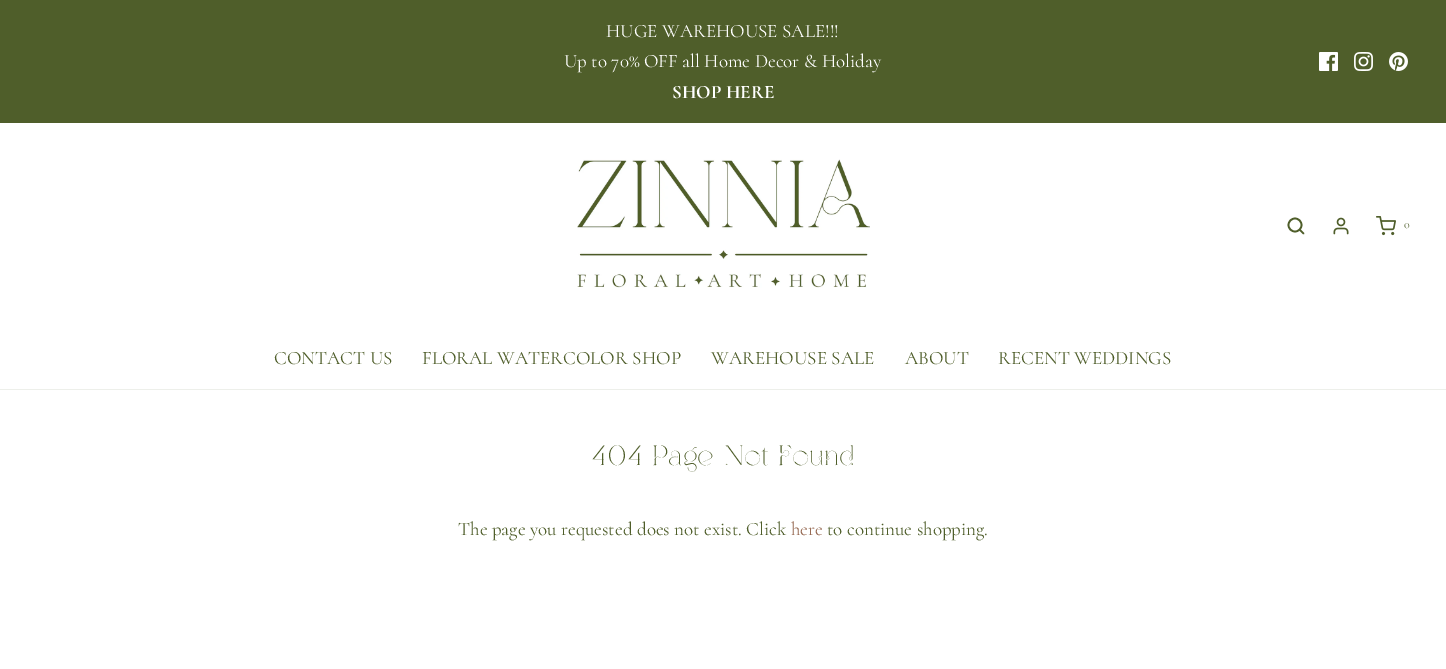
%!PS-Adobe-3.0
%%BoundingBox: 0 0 1446 669
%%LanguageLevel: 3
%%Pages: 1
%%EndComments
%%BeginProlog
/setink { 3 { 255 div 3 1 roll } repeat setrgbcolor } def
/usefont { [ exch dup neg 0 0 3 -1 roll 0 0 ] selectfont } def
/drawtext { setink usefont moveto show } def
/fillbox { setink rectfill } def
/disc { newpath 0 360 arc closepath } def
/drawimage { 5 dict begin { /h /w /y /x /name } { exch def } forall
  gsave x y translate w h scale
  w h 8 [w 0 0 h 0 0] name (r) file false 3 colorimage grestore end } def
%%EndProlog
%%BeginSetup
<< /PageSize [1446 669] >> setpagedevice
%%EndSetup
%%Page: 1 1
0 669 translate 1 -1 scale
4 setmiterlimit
0 0 1446 669 255 255 255 fillbox
0 0 1446 123 79 94 42 fillbox
(HUGE WAREHOUSE SALE!!!) 606 37 /Cormorant-Regular 19 255 255 255 drawtext
(Up to 70% OFF all Home Decor & Holiday) 564 67 /Cormorant-Regular 19 255 255 255 drawtext
(SHOP HERE) 672 98 /Cormorant-Bold 19 255 255 255 drawtext
(assets/img1.rgb) 1319 52 19 19 drawimage
(assets/img2.rgb) 1354 52 19 19 drawimage
(assets/img3.rgb) 1389 52 19 19 drawimage
0 389 1446 1 237 239 234 fillbox
(assets/img4.rgb) 577 159 293 129 drawimage
79 94 42 setink
1.7 setlinewidth
1295 225 6.5 disc stroke
1 setlinecap
1 setlinejoin
1303.5 233.5 moveto 1300 230 lineto stroke
(assets/img5.rgb) 1333 217 16 18 drawimage
(assets/img6.rgb) 1376 216 20 20 drawimage
(0) 1404 228 /Cormorant-Regular 12 79 94 42 drawtext
(CONTACT US) 274 364 /Cormorant-Regular 19 79 94 42 drawtext
(FLORAL WATERCOLOR SHOP) 422 364 /Cormorant-Regular 19 79 94 42 drawtext
(WAREHOUSE SALE) 711 364 /Cormorant-Regular 19 79 94 42 drawtext
(ABOUT) 905 364 /Cormorant-Regular 19 79 94 42 drawtext
(RECENT WEDDINGS) 998 364 /Cormorant-Regular 19 79 94 42 drawtext
(404 Page Not Found) 591 465 /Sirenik-Regular 28 79 94 42 drawtext
(The page you requested does not exist. Click) 458 535 /Cormorant-Regular 19 79 94 42 drawtext
(here) 791 535 /Cormorant-Regular 19 151 106 83 drawtext
(to continue shopping.) 827 535 /Cormorant-Regular 19 79 94 42 drawtext
showpage
%%EOF
